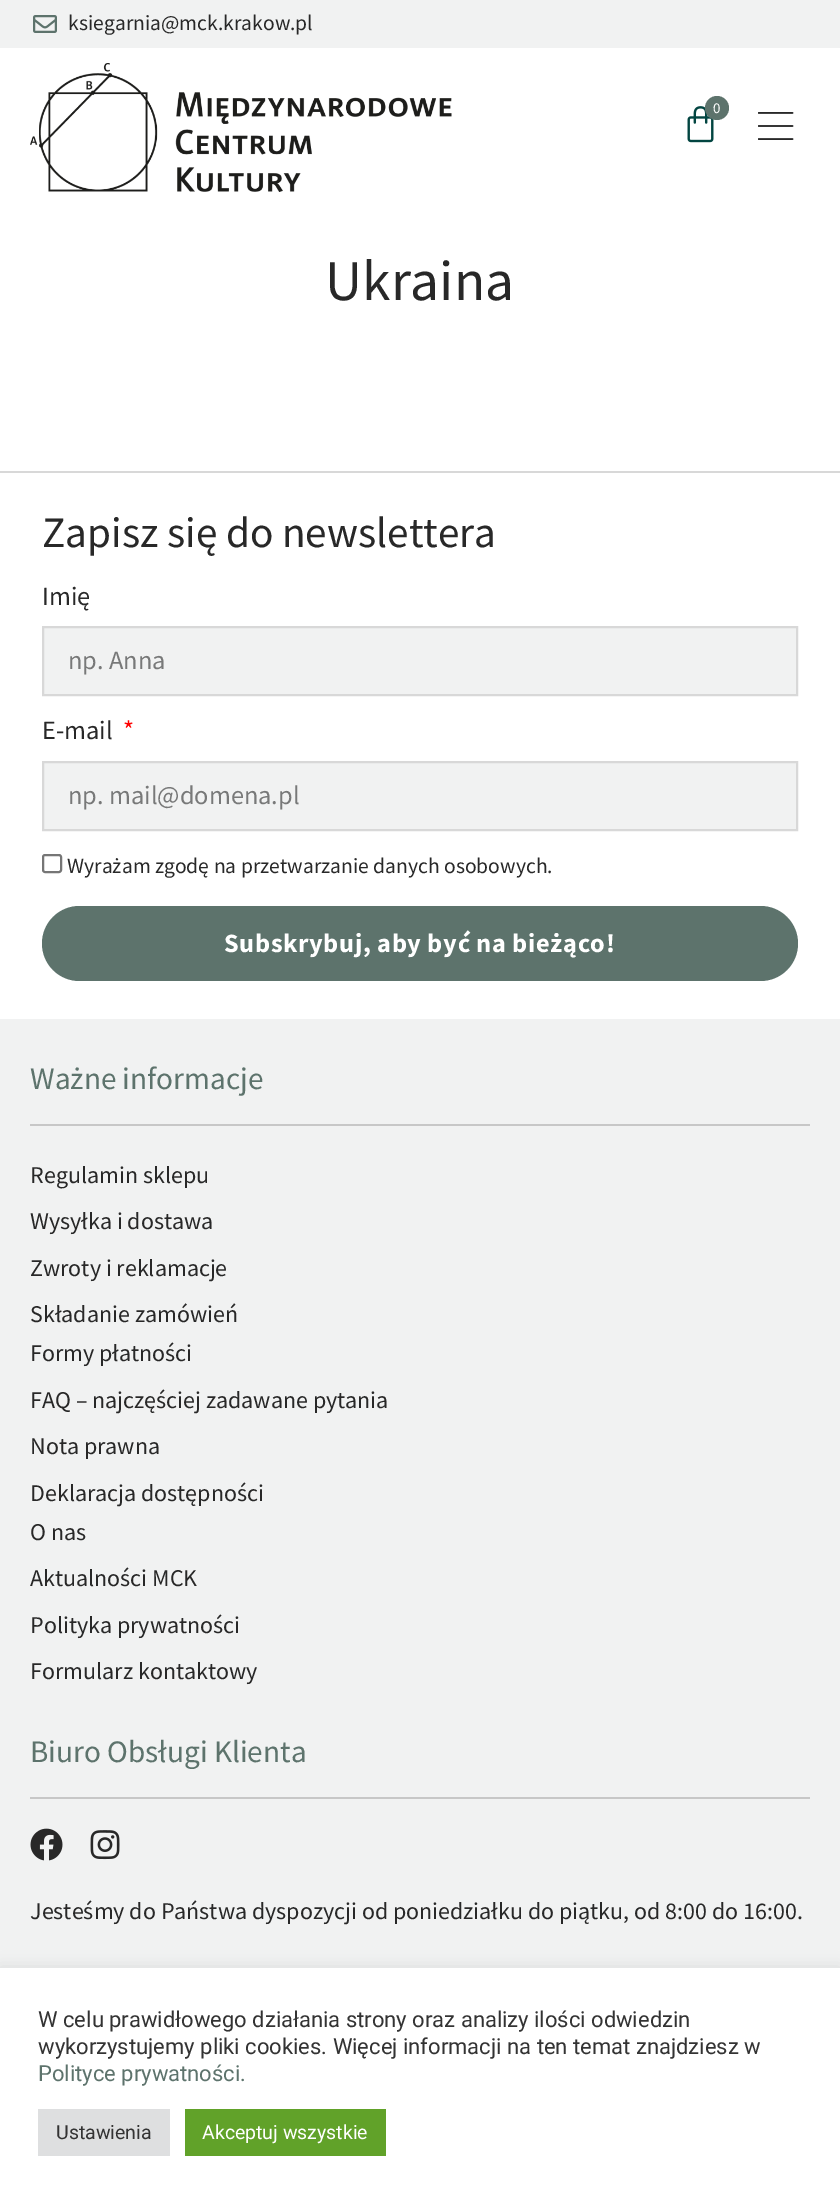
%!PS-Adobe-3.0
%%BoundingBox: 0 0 840 2200
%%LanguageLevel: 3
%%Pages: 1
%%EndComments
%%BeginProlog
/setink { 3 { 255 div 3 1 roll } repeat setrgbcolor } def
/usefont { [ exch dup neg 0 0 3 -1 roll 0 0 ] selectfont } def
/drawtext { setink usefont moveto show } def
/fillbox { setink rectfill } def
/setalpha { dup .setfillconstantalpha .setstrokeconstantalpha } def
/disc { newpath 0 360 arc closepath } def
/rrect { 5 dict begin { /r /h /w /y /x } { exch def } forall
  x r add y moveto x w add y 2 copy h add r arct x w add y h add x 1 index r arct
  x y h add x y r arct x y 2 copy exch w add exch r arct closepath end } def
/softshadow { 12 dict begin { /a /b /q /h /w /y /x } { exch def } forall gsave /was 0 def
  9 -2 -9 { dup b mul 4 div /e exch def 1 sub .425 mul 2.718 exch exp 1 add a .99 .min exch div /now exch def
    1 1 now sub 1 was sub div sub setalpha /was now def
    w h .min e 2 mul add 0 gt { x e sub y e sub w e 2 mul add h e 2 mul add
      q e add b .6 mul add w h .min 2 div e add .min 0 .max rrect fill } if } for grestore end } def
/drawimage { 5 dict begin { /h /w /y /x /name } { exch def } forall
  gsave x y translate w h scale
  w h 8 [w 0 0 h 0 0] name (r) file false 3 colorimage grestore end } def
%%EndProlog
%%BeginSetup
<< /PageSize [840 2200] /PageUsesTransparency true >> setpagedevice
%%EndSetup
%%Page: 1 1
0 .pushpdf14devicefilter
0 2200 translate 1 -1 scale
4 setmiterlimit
0 0 840 2200 255 255 255 fillbox
0 0 840 48 241 242 242 fillbox
(assets/img1.rgb) 33 15 24 18 drawimage
(ksiegarnia@mck.krakow.pl) 68 30 /SourceSansPro-Regular 21.6 40 40 40 drawtext
(assets/img2.rgb) 30 63 422 129 drawimage
(assets/img3.rgb) 687 106 27 37 drawimage
93 115 108 setink
717 108 12 disc fill
/SourceSansPro-Regular 15 usefont
255 255 255 setink
713 113 moveto 0.6 0 (0) ashow
(assets/img4.rgb) 758 112 36 28 drawimage
(Ukraina) 325 300 /SourceSansPro-Regular 57.5 40 40 40 drawtext
0 471 840 2 216 216 216 fillbox
(Zapisz się do newslettera) 42 547 /SourceSansPro-Regular 43.25 40 40 40 drawtext
(Imię) 42 605 /SourceSansPro-Regular 26.4 40 40 40 drawtext
241 242 242 setink
43 627 moveto 797 627 lineto 797 695 lineto 43 695 lineto closepath gsave fill grestore
216 216 216 setink
2 setlinewidth
stroke
(np. Anna) 68 669 /SourceSansPro-Regular 26.4 120 121 121 drawtext
(E-mail) 42 739 /SourceSansPro-Regular 26.4 40 40 40 drawtext
(*) 123 739 /SourceSansPro-Regular 26.4 255 0 0 drawtext
241 242 242 setink
43 762 moveto 797 762 lineto 797 830 lineto 43 830 lineto closepath gsave fill grestore
216 216 216 setink
stroke
(np. mail@domena.pl) 68 804 /SourceSansPro-Regular 26.4 120 121 121 drawtext
118 118 118 setink
43 855 18 17 2 rrect stroke
(Wyrażam zgodę na przetwarzanie danych osobowych.) 67 873 /SourceSansPro-Regular 21.6 40 40 40 drawtext
93 115 108 setink
42 906 756 75 37.5 rrect fill
/SourceSansPro-Bold 26.4 usefont
255 255 255 setink
224 952 moveto 0.6 0 (Subskrybuj, aby być na bieżąco!) ashow
0 1019 840 949 241 242 242 fillbox
(Ważne informacje) 30 1089 /SourceSansPro-Regular 31.25 93 115 108 drawtext
30 1124 780 2 199 199 199 fillbox
(Regulamin sklepu) 30 1183 /SourceSansPro-Regular 24 40 40 40 drawtext
(Wysyłka i dostawa) 30 1229 /SourceSansPro-Regular 24 40 40 40 drawtext
(Zwroty i reklamacje) 30 1276 /SourceSansPro-Regular 24 40 40 40 drawtext
(Składanie zamówień) 30 1322 /SourceSansPro-Regular 24 40 40 40 drawtext
(Formy płatności) 30 1361 /SourceSansPro-Regular 24 40 40 40 drawtext
(FAQ – najczęściej zadawane pytania) 30 1408 /SourceSansPro-Regular 24 40 40 40 drawtext
(Nota prawna) 30 1454 /SourceSansPro-Regular 24 40 40 40 drawtext
(Deklaracja dostępności) 30 1501 /SourceSansPro-Regular 24 40 40 40 drawtext
(O nas) 30 1540 /SourceSansPro-Regular 24 40 40 40 drawtext
(Aktualności MCK) 30 1586 /SourceSansPro-Regular 24 40 40 40 drawtext
(Polityka prywatności) 30 1633 /SourceSansPro-Regular 24 40 40 40 drawtext
(Formularz kontaktowy) 30 1679 /SourceSansPro-Regular 24 40 40 40 drawtext
(Biuro Obsługi Klienta) 30 1762 /SourceSansPro-Regular 31.25 93 115 108 drawtext
30 1797 780 2 199 199 199 fillbox
(assets/img5.rgb) 30 1828 33 33 drawimage
(assets/img6.rgb) 90 1830 30 30 drawimage
(Jesteśmy do Państwa dyspozycji od poniedziałku do piątku, od 8:00 do 16:00.) 30 1919 /SourceSansPro-Regular 24 40 40 40 drawtext
172 171 171 setink
0 1967 840 232 0 7.5 0.3 softshadow
0 1968 840 232 255 255 255 fillbox
(W celu prawidłowego działania strony oraz analizy ilości odwiedzin) 38 2027 /Roboto-Regular 22 51 51 51 drawtext
(wykorzystujemy pliki cookies. Więcej informacji na ten temat znajdziesz w) 38 2054 /Roboto-Regular 22 51 51 51 drawtext
(Polityce prywatności.) 38 2081 /Roboto-Regular 22 93 115 108 drawtext
38 2109 132 47 222 223 224 fillbox
(Ustawienia) 56 2139 /Roboto-Regular 19.5 51 51 51 drawtext
185 2109 201 47 97 162 41 fillbox
(Akceptuj wszystkie) 202 2139 /Roboto-Regular 19.5 255 255 255 drawtext
.poppdf14devicefilter showpage
%%EOF
